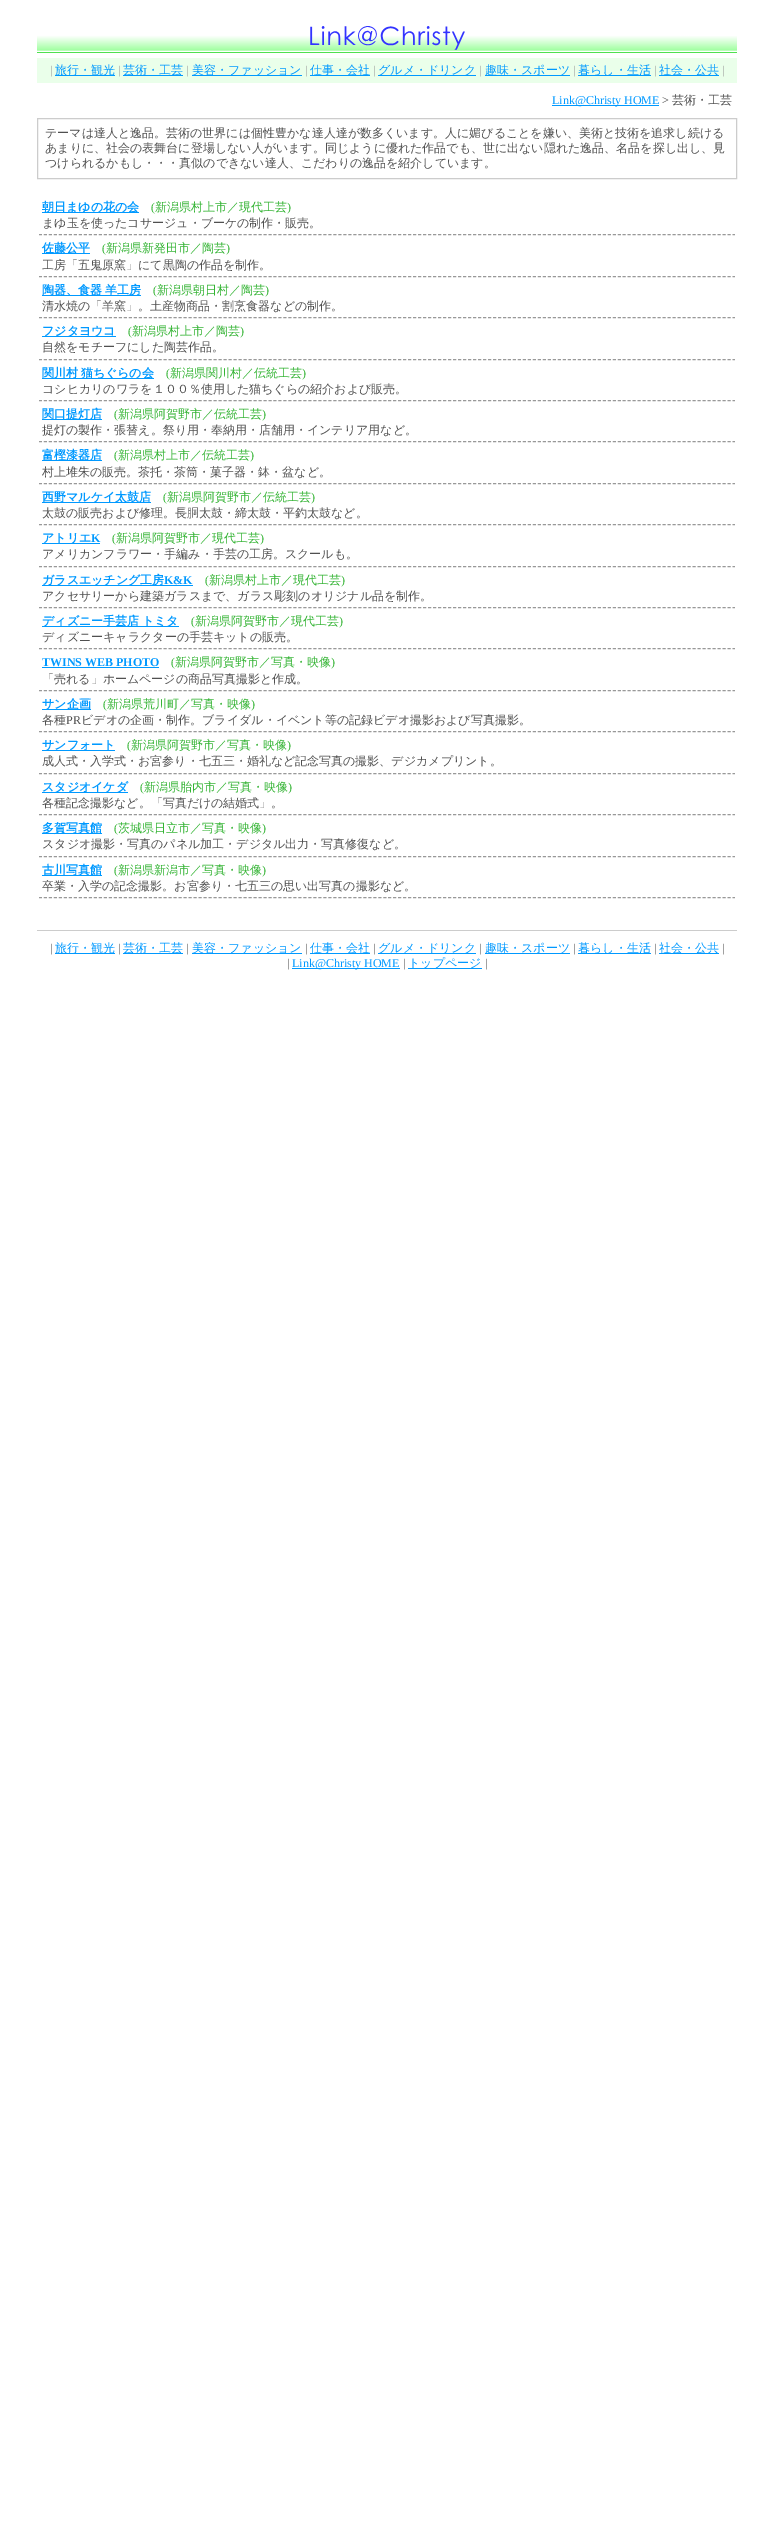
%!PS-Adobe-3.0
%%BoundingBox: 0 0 774 2548
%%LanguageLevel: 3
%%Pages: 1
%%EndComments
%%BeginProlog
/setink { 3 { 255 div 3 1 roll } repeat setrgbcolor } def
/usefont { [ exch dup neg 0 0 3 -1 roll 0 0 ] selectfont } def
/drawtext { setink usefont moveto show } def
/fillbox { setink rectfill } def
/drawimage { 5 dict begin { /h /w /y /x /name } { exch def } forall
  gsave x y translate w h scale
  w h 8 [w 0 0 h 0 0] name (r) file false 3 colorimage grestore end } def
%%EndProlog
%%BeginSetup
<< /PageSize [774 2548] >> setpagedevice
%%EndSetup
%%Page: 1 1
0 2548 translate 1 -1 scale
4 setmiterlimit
0 0 774 2548 255 255 255 fillbox
(assets/img1.rgb) 37 26 700 27 drawimage
37 58 700 25 234 255 234 fillbox
(|) 50 74 /LiberationSerif-Regular 12 153 153 153 drawtext
55 75 60 1 0 153 255 fillbox
(旅行・観光) 55 74 /WenQuanYiZenHei-Medium 12 0 153 255 drawtext
(|) 118 74 /LiberationSerif-Regular 12 153 153 153 drawtext
123 75 60 1 0 153 255 fillbox
(芸術・工芸) 123 74 /WenQuanYiZenHei-Medium 12 0 153 255 drawtext
(|) 186 74 /LiberationSerif-Regular 12 153 153 153 drawtext
192 75 110 1 0 153 255 fillbox
(美容・ファッション) 192 74 /WenQuanYiZenHei-Medium 12 0 153 255 drawtext
(|) 305 74 /LiberationSerif-Regular 12 153 153 153 drawtext
310 75 60 1 0 153 255 fillbox
(仕事・会社) 310 74 /WenQuanYiZenHei-Medium 12 0 153 255 drawtext
(|) 373 74 /LiberationSerif-Regular 12 153 153 153 drawtext
378 75 98 1 0 153 255 fillbox
(グルメ・ドリンク) 378 74 /WenQuanYiZenHei-Medium 12 0 153 255 drawtext
(|) 479 74 /LiberationSerif-Regular 12 153 153 153 drawtext
485 75 85 1 0 153 255 fillbox
(趣味・スポーツ) 485 74 /WenQuanYiZenHei-Medium 12 0 153 255 drawtext
(|) 573 74 /LiberationSerif-Regular 12 153 153 153 drawtext
578 75 73 1 0 153 255 fillbox
(暮らし・生活) 578 74 /WenQuanYiZenHei-Medium 12 0 153 255 drawtext
(|) 654 74 /LiberationSerif-Regular 12 153 153 153 drawtext
659 75 60 1 0 153 255 fillbox
(社会・公共) 659 74 /WenQuanYiZenHei-Medium 12 0 153 255 drawtext
(|) 722 74 /LiberationSerif-Regular 12 153 153 153 drawtext
552 105 107 1 0 153 255 fillbox
(Link@Christy HOME) 552 104 /LiberationSerif-Regular 12 0 153 255 drawtext
(>) 662 104 /LiberationSerif-Regular 12 80 80 80 drawtext
(芸術・工芸) 672 104 /WenQuanYiZenHei-Medium 12 80 80 80 drawtext
204 204 204 setink
37.5 118.5 699 60 rectstroke
(テーマは達人と逸品。芸術の世界には個性豊かな達人達が数多くいます。人に媚びることを嫌い、美術と技術を追求し続ける) 45 137 /WenQuanYiZenHei-Medium 12 80 80 80 drawtext
(あまりに、社会の表舞台に登場しない人がいます。同じように優れた作品でも、世に出ない隠れた逸品、名品を探し出し、見) 45 152 /WenQuanYiZenHei-Medium 12 80 80 80 drawtext
(つけられるかもし・・・真似のできない達人、こだわりの逸品を紹介しています。) 45 167 /WenQuanYiZenHei-Medium 12 80 80 80 drawtext
153 153 153 setink
[3 1.99] 0 setdash
39 234.5 moveto 735 234.5 lineto stroke
42 212 97 1 0 153 255 fillbox
(朝日まゆの花の会) 42 211 /WenQuanYiZenHei-Bold 12 0 153 255 drawtext
(\() 151 211 /LiberationSerif-Regular 12 51 180 51 drawtext
(新潟県村上市／現代工芸) 155 211 /WenQuanYiZenHei-Medium 12 51 180 51 drawtext
(\)) 287 211 /LiberationSerif-Regular 12 51 180 51 drawtext
(まゆ玉を使ったコサージュ・ブーケの制作・販売。) 42 227 /WenQuanYiZenHei-Medium 12 80 80 80 drawtext
153 153 153 setink
39 276.5 moveto 735 276.5 lineto stroke
42 253 48 1 0 153 255 fillbox
(佐藤公平) 42 252 /WenQuanYiZenHei-Bold 12 0 153 255 drawtext
(\() 102 252 /LiberationSerif-Regular 12 51 180 51 drawtext
(新潟県新発田市／陶芸) 106 252 /WenQuanYiZenHei-Medium 12 51 180 51 drawtext
(\)) 226 252 /LiberationSerif-Regular 12 51 180 51 drawtext
(工房「五鬼原窯」にて黒陶の作品を制作。) 42 269 /WenQuanYiZenHei-Medium 12 80 80 80 drawtext
153 153 153 setink
39 317.5 moveto 735 317.5 lineto stroke
42 295 99 1 0 153 255 fillbox
/WenQuanYiZenHei-Bold 12 usefont
42 294 moveto -1 0 32 (陶器、食器 羊工房) widthshow
(\() 153 294 /LiberationSerif-Regular 12 51 180 51 drawtext
(新潟県朝日村／陶芸) 157 294 /WenQuanYiZenHei-Medium 12 51 180 51 drawtext
(\)) 265 294 /LiberationSerif-Regular 12 51 180 51 drawtext
(清水焼の「羊窯」。土産物商品・割烹食器などの制作。) 42 310 /WenQuanYiZenHei-Medium 12 80 80 80 drawtext
153 153 153 setink
39 359.5 moveto 735 359.5 lineto stroke
42 336 74 1 0 153 255 fillbox
(フジタヨウコ) 42 335 /WenQuanYiZenHei-Bold 12 0 153 255 drawtext
(\() 128 335 /LiberationSerif-Regular 12 51 180 51 drawtext
(新潟県村上市／陶芸) 132 335 /WenQuanYiZenHei-Medium 12 51 180 51 drawtext
(\)) 240 335 /LiberationSerif-Regular 12 51 180 51 drawtext
(自然をモチーフにした陶芸作品。) 42 351 /WenQuanYiZenHei-Medium 12 80 80 80 drawtext
153 153 153 setink
39 400.5 moveto 735 400.5 lineto stroke
42 378 112 1 0 153 255 fillbox
/WenQuanYiZenHei-Bold 12 usefont
42 377 moveto -1 0 32 (関川村 猫ちぐらの会) widthshow
(\() 166 377 /LiberationSerif-Regular 12 51 180 51 drawtext
(新潟県関川村／伝統工芸) 170 377 /WenQuanYiZenHei-Medium 12 51 180 51 drawtext
(\)) 302 377 /LiberationSerif-Regular 12 51 180 51 drawtext
(コシヒカリのワラを１００％使用した猫ちぐらの紹介および販売。) 42 393 /WenQuanYiZenHei-Medium 12 80 80 80 drawtext
153 153 153 setink
39 441.5 moveto 735 441.5 lineto stroke
42 419 60 1 0 153 255 fillbox
(関口提灯店) 42 418 /WenQuanYiZenHei-Bold 12 0 153 255 drawtext
(\() 114 418 /LiberationSerif-Regular 12 51 180 51 drawtext
(新潟県阿賀野市／伝統工芸) 118 418 /WenQuanYiZenHei-Medium 12 51 180 51 drawtext
(\)) 262 418 /LiberationSerif-Regular 12 51 180 51 drawtext
(提灯の製作・張替え。祭り用・奉納用・店舗用・インテリア用など。) 42 434 /WenQuanYiZenHei-Medium 12 80 80 80 drawtext
153 153 153 setink
39 483.5 moveto 735 483.5 lineto stroke
42 460 60 1 0 153 255 fillbox
(富樫漆器店) 42 459 /WenQuanYiZenHei-Bold 12 0 153 255 drawtext
(\() 114 459 /LiberationSerif-Regular 12 51 180 51 drawtext
(新潟県村上市／伝統工芸) 118 459 /WenQuanYiZenHei-Medium 12 51 180 51 drawtext
(\)) 250 459 /LiberationSerif-Regular 12 51 180 51 drawtext
(村上堆朱の販売。茶托・茶筒・菓子器・鉢・盆など。) 42 476 /WenQuanYiZenHei-Medium 12 80 80 80 drawtext
153 153 153 setink
39 524.5 moveto 735 524.5 lineto stroke
42 502 109 1 0 153 255 fillbox
(西野マルケイ太鼓店) 42 501 /WenQuanYiZenHei-Bold 12 0 153 255 drawtext
(\() 163 501 /LiberationSerif-Regular 12 51 180 51 drawtext
(新潟県阿賀野市／伝統工芸) 167 501 /WenQuanYiZenHei-Medium 12 51 180 51 drawtext
(\)) 311 501 /LiberationSerif-Regular 12 51 180 51 drawtext
(太鼓の販売および修理。長胴太鼓・締太鼓・平釣太鼓など。) 42 517 /WenQuanYiZenHei-Medium 12 80 80 80 drawtext
153 153 153 setink
39 566.5 moveto 735 566.5 lineto stroke
42 543 58 1 0 153 255 fillbox
(アトリエ) 42 542 /WenQuanYiZenHei-Bold 12 0 153 255 drawtext
(K) 91 542 /LiberationSerif-Bold 12 0 153 255 drawtext
(\() 112 542 /LiberationSerif-Regular 12 51 180 51 drawtext
(新潟県阿賀野市／現代工芸) 116 542 /WenQuanYiZenHei-Medium 12 51 180 51 drawtext
(\)) 260 542 /LiberationSerif-Regular 12 51 180 51 drawtext
(アメリカンフラワー・手編み・手芸の工房。スクールも。) 42 558 /WenQuanYiZenHei-Medium 12 80 80 80 drawtext
153 153 153 setink
39 607.5 moveto 735 607.5 lineto stroke
42 585 151 1 0 153 255 fillbox
(ガラスエッチング工房) 42 584 /WenQuanYiZenHei-Bold 12 0 153 255 drawtext
(K&K) 164 584 /LiberationSerif-Bold 12 0 153 255 drawtext
(\() 205 584 /LiberationSerif-Regular 12 51 180 51 drawtext
(新潟県村上市／現代工芸) 209 584 /WenQuanYiZenHei-Medium 12 51 180 51 drawtext
(\)) 341 584 /LiberationSerif-Regular 12 51 180 51 drawtext
(アクセサリーから建築ガラスまで、ガラス彫刻のオリジナル品を制作。) 42 600 /WenQuanYiZenHei-Medium 12 80 80 80 drawtext
153 153 153 setink
39 648.5 moveto 735 648.5 lineto stroke
42 626 137 1 0 153 255 fillbox
/WenQuanYiZenHei-Bold 12 usefont
42 625 moveto -1 0 32 (ディズニー手芸店 トミタ) widthshow
(\() 191 625 /LiberationSerif-Regular 12 51 180 51 drawtext
(新潟県阿賀野市／現代工芸) 195 625 /WenQuanYiZenHei-Medium 12 51 180 51 drawtext
(\)) 339 625 /LiberationSerif-Regular 12 51 180 51 drawtext
(ディズニーキャラクターの手芸キットの販売。) 42 641 /WenQuanYiZenHei-Medium 12 80 80 80 drawtext
153 153 153 setink
39 690.5 moveto 735 690.5 lineto stroke
(TWINS WEB PHOTO) 42 666 /LiberationSerif-Bold 12 0 153 255 drawtext
42 667 117 1 0 153 255 fillbox
(\() 171 666 /LiberationSerif-Regular 12 51 180 51 drawtext
(新潟県阿賀野市／写真・映像) 175 666 /WenQuanYiZenHei-Medium 12 51 180 51 drawtext
(\)) 331 666 /LiberationSerif-Regular 12 51 180 51 drawtext
(「売れる」ホームページの商品写真撮影と作成。) 42 683 /WenQuanYiZenHei-Medium 12 80 80 80 drawtext
153 153 153 setink
39 731.5 moveto 735 731.5 lineto stroke
42 709 49 1 0 153 255 fillbox
(サン企画) 42 708 /WenQuanYiZenHei-Bold 12 0 153 255 drawtext
(\() 103 708 /LiberationSerif-Regular 12 51 180 51 drawtext
(新潟県荒川町／写真・映像) 107 708 /WenQuanYiZenHei-Medium 12 51 180 51 drawtext
(\)) 251 708 /LiberationSerif-Regular 12 51 180 51 drawtext
(各種) 42 724 /WenQuanYiZenHei-Medium 12 80 80 80 drawtext
(PR) 66 724 /LiberationSerif-Regular 12 80 80 80 drawtext
(ビデオの企画・制作。ブライダル・イベント等の記録ビデオ撮影および写真撮影。) 81 724 /WenQuanYiZenHei-Medium 12 80 80 80 drawtext
153 153 153 setink
39 773.5 moveto 735 773.5 lineto stroke
42 750 73 1 0 153 255 fillbox
(サンフォート) 42 749 /WenQuanYiZenHei-Bold 12 0 153 255 drawtext
(\() 127 749 /LiberationSerif-Regular 12 51 180 51 drawtext
(新潟県阿賀野市／写真・映像) 131 749 /WenQuanYiZenHei-Medium 12 51 180 51 drawtext
(\)) 287 749 /LiberationSerif-Regular 12 51 180 51 drawtext
(成人式・入学式・お宮参り・七五三・婚礼など記念写真の撮影、デジカメプリント。) 42 765 /WenQuanYiZenHei-Medium 12 80 80 80 drawtext
153 153 153 setink
39 814.5 moveto 735 814.5 lineto stroke
42 792 86 1 0 153 255 fillbox
(スタジオイケダ) 42 791 /WenQuanYiZenHei-Bold 12 0 153 255 drawtext
(\() 140 791 /LiberationSerif-Regular 12 51 180 51 drawtext
(新潟県胎内市／写真・映像) 144 791 /WenQuanYiZenHei-Medium 12 51 180 51 drawtext
(\)) 288 791 /LiberationSerif-Regular 12 51 180 51 drawtext
(各種記念撮影など。「写真だけの結婚式」。) 42 807 /WenQuanYiZenHei-Medium 12 80 80 80 drawtext
153 153 153 setink
39 856.5 moveto 735 856.5 lineto stroke
42 833 60 1 0 153 255 fillbox
(多賀写真館) 42 832 /WenQuanYiZenHei-Bold 12 0 153 255 drawtext
(\() 114 832 /LiberationSerif-Regular 12 51 180 51 drawtext
(茨城県日立市／写真・映像) 118 832 /WenQuanYiZenHei-Medium 12 51 180 51 drawtext
(\)) 262 832 /LiberationSerif-Regular 12 51 180 51 drawtext
(スタジオ撮影・写真のパネル加工・デジタル出力・写真修復など。) 42 848 /WenQuanYiZenHei-Medium 12 80 80 80 drawtext
153 153 153 setink
39 897.5 moveto 735 897.5 lineto stroke
42 875 60 1 0 153 255 fillbox
(古川写真館) 42 874 /WenQuanYiZenHei-Bold 12 0 153 255 drawtext
(\() 114 874 /LiberationSerif-Regular 12 51 180 51 drawtext
(新潟県新潟市／写真・映像) 118 874 /WenQuanYiZenHei-Medium 12 51 180 51 drawtext
(\)) 262 874 /LiberationSerif-Regular 12 51 180 51 drawtext
(卒業・入学の記念撮影。お宮参り・七五三の思い出写真の撮影など。) 42 890 /WenQuanYiZenHei-Medium 12 80 80 80 drawtext
37 930 700 1 204 204 204 fillbox
(|) 50 952 /LiberationSerif-Regular 12 80 80 80 drawtext
55 953 60 1 0 153 255 fillbox
(旅行・観光) 55 952 /WenQuanYiZenHei-Medium 12 0 153 255 drawtext
(|) 118 952 /LiberationSerif-Regular 12 80 80 80 drawtext
123 953 60 1 0 153 255 fillbox
(芸術・工芸) 123 952 /WenQuanYiZenHei-Medium 12 0 153 255 drawtext
(|) 186 952 /LiberationSerif-Regular 12 80 80 80 drawtext
192 953 110 1 0 153 255 fillbox
(美容・ファッション) 192 952 /WenQuanYiZenHei-Medium 12 0 153 255 drawtext
(|) 305 952 /LiberationSerif-Regular 12 80 80 80 drawtext
310 953 60 1 0 153 255 fillbox
(仕事・会社) 310 952 /WenQuanYiZenHei-Medium 12 0 153 255 drawtext
(|) 373 952 /LiberationSerif-Regular 12 80 80 80 drawtext
378 953 98 1 0 153 255 fillbox
(グルメ・ドリンク) 378 952 /WenQuanYiZenHei-Medium 12 0 153 255 drawtext
(|) 479 952 /LiberationSerif-Regular 12 80 80 80 drawtext
485 953 85 1 0 153 255 fillbox
(趣味・スポーツ) 485 952 /WenQuanYiZenHei-Medium 12 0 153 255 drawtext
(|) 573 952 /LiberationSerif-Regular 12 80 80 80 drawtext
578 953 73 1 0 153 255 fillbox
(暮らし・生活) 578 952 /WenQuanYiZenHei-Medium 12 0 153 255 drawtext
(|) 654 952 /LiberationSerif-Regular 12 80 80 80 drawtext
659 953 60 1 0 153 255 fillbox
(社会・公共) 659 952 /WenQuanYiZenHei-Medium 12 0 153 255 drawtext
(|) 722 952 /LiberationSerif-Regular 12 80 80 80 drawtext
(|) 287 967 /LiberationSerif-Regular 12 80 80 80 drawtext
292 968 108 1 0 153 255 fillbox
(Link@Christy HOME) 292 967 /LiberationSerif-Regular 12 0 153 255 drawtext
(|) 403 967 /LiberationSerif-Regular 12 80 80 80 drawtext
408 968 74 1 0 153 255 fillbox
(トップページ) 408 967 /WenQuanYiZenHei-Medium 12 0 153 255 drawtext
(|) 485 967 /LiberationSerif-Regular 12 80 80 80 drawtext
showpage
%%EOF
